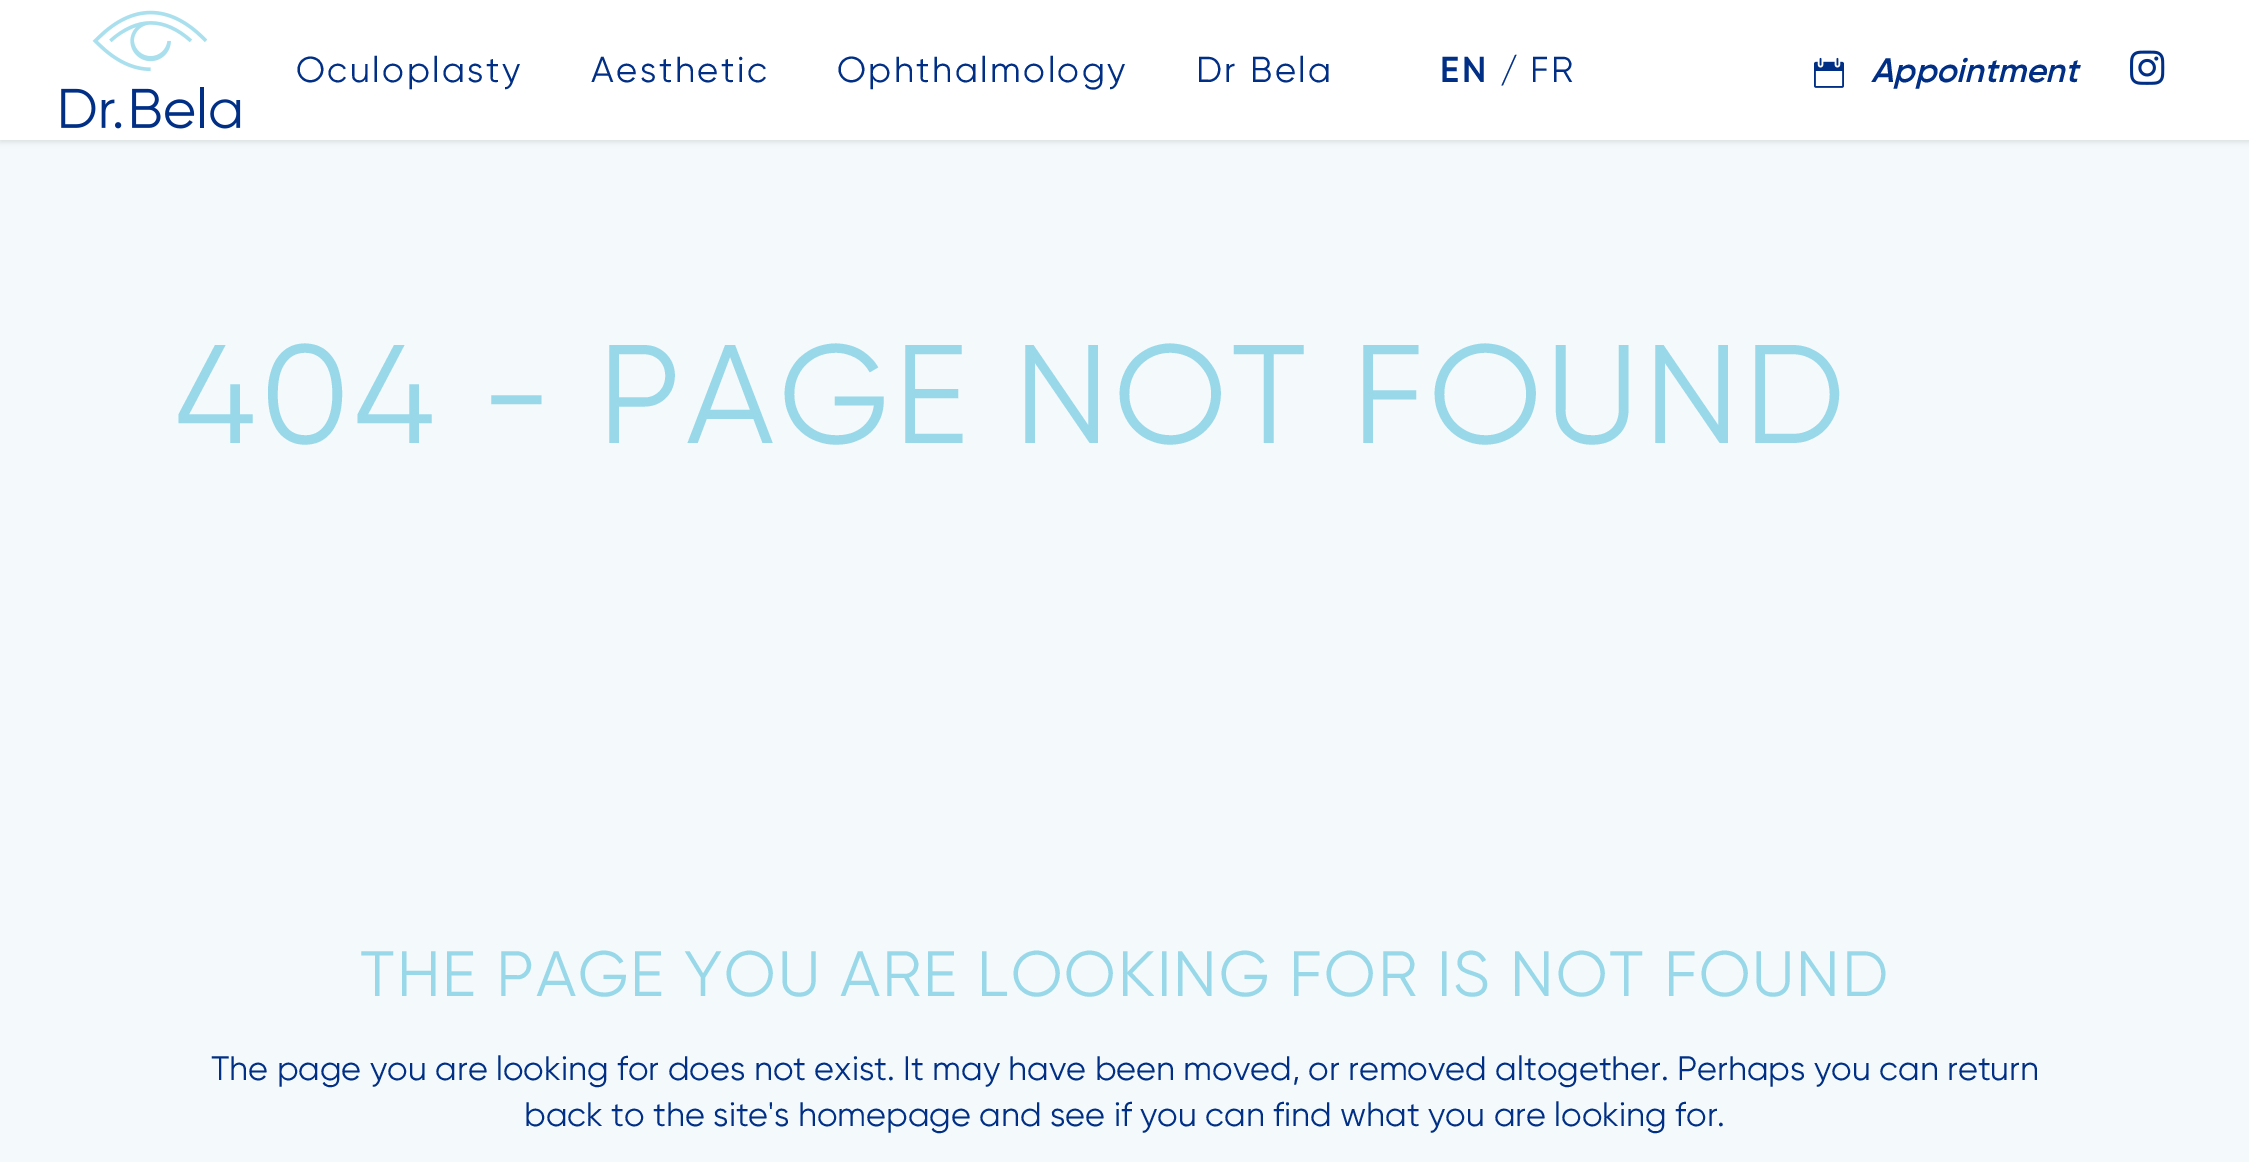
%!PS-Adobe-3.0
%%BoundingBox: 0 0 2249 1162
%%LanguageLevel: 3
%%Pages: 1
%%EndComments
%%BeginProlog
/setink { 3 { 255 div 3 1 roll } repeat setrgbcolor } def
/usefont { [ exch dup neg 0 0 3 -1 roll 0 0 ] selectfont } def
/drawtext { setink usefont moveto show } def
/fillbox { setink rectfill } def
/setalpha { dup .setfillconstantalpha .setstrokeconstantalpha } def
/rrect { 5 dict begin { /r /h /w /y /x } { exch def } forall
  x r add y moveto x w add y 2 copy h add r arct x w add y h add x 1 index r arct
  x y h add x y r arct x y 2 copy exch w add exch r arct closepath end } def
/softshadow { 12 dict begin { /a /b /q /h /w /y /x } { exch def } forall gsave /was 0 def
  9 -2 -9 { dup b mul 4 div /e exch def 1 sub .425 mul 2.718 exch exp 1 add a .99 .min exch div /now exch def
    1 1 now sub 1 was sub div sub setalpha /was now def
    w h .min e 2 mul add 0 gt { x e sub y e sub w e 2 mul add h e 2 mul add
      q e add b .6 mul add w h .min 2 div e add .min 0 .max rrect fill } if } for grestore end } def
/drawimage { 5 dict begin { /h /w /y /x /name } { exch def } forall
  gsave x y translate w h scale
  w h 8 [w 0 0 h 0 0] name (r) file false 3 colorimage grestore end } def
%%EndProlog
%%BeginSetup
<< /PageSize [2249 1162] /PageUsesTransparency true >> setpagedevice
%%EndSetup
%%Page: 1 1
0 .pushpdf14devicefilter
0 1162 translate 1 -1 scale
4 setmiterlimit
0 0 2249 1162 244 250 251 fillbox
0 0 0 setink
0 2 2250 140 0 3 0.11 softshadow
0 0 2249 140 255 255 255 fillbox
(assets/img1.rgb) 61 10 180 119 drawimage
/Gilroy-Regular 36 usefont
0 47 133 setink
296 82 moveto 2.5 0 (Oculoplasty) ashow
591 82 moveto 2.5 0 (Aesthetic) ashow
837 82 moveto 2.5 0 (Ophthalmology) ashow
1196 82 moveto 2.5 0 (Dr Bela) ashow
/Gilroy-SemiBold 36 usefont
1440 82 moveto 2.5 0 (EN) ashow
(/) 1500 82 /Gilroy-Regular 34 0 47 133 drawtext
/Gilroy-Regular 36 usefont
1530 82 moveto 2.5 0 (FR) ashow
(assets/img2.rgb) 1814 57 30 31 drawimage
(Appointment) 1871 82 /Gilroy-SemiBoldItalic 34 0 47 133 drawtext
(assets/img3.rgb) 2130 50 35 35 drawimage
/Gilroy-Regular 140 usefont
153 216 233 setink
175 443 moveto 5 0 (404 - PAGE NOT FOUND) ashow
/Gilroy-Regular 64 usefont
360 996 moveto 2 0 (THE PAGE YOU ARE LOOKING FOR IS NOT FOUND) ashow
(The page you are looking for does not exist. It may have been moved, or removed altogether. Perhaps you can return) 211 1080 /Gilroy-Regular 34 0 47 133 drawtext
(back to the site's homepage and see if you can find what you are looking for.) 524 1126 /Gilroy-Regular 34 0 47 133 drawtext
.poppdf14devicefilter showpage
%%EOF
